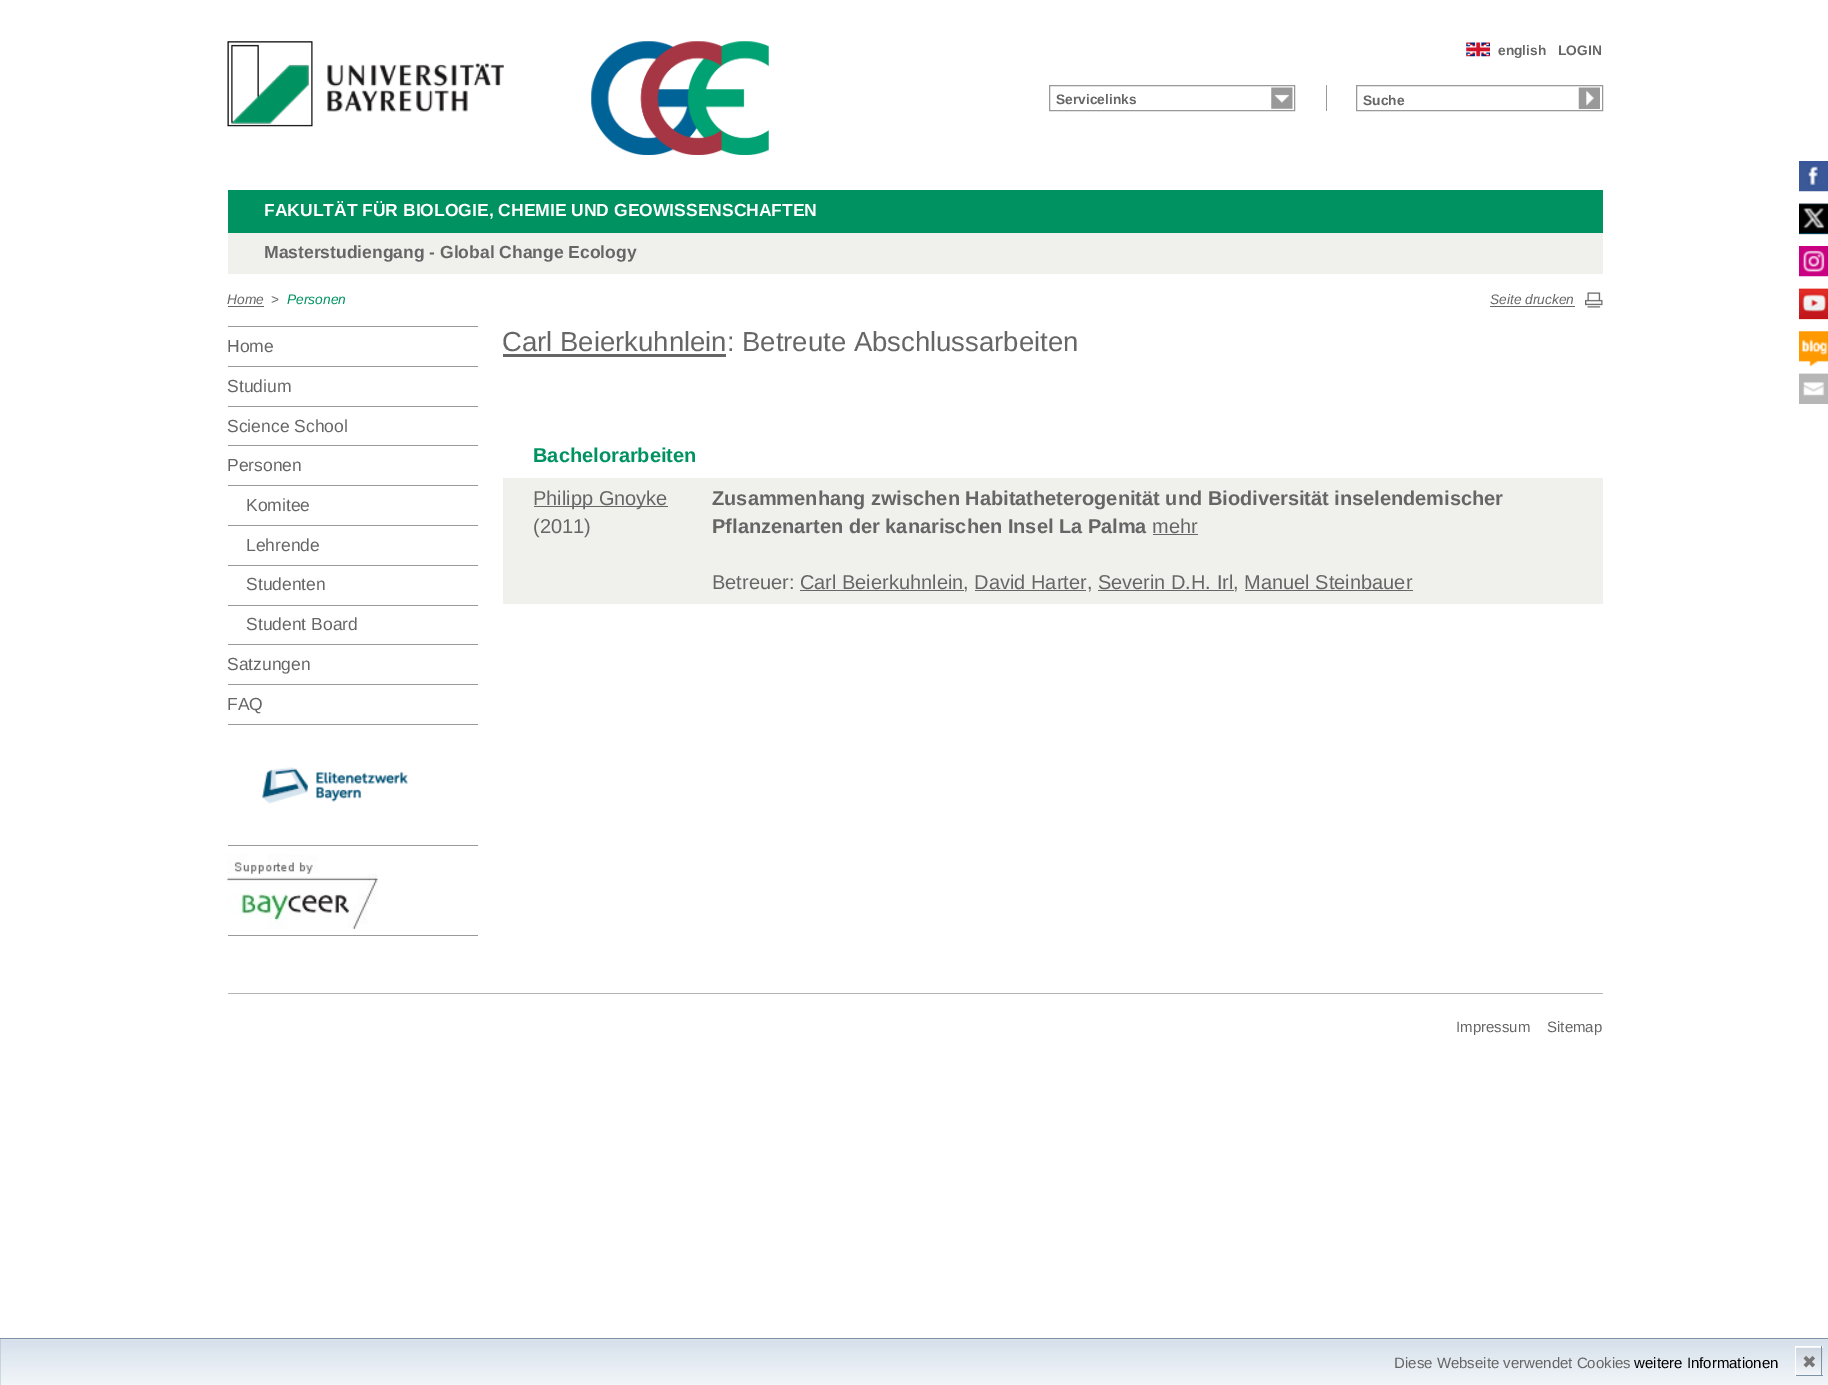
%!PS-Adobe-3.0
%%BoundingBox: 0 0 1828 1385
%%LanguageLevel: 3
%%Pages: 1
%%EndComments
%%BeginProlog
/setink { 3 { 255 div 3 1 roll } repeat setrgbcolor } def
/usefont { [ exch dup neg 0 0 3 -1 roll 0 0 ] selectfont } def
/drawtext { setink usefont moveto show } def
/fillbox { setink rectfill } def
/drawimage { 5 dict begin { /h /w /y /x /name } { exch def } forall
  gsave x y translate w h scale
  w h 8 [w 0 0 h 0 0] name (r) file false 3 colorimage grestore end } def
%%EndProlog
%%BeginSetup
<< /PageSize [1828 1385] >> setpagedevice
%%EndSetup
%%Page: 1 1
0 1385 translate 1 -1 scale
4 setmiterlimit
0 0 1828 1385 255 255 255 fillbox
(assets/img1.rgb) 227 41 277 86 drawimage
(assets/img2.rgb) 591 41 178 114 drawimage
(assets/img3.rgb) 1466 42 24 15 drawimage
(english) 1498 55 /LiberationSans-Bold 13.75 102 102 102 drawtext
(LOGIN) 1558 55 /LiberationSans-Bold 13.75 102 102 102 drawtext
(assets/img4.rgb) 1271 87 22 22 drawimage
153 153 153 setink
1049.5 85.5 245 25 rectstroke
(Servicelinks) 1056 104 /LiberationSans-Bold 13.75 102 102 102 drawtext
1326 85 1 26 153 153 153 fillbox
1356.5 85.5 246 25 rectstroke
(Suche) 1363 105 /LiberationSans-Bold 13.75 102 102 102 drawtext
(assets/img5.rgb) 1578 87 22 22 drawimage
228 190 1375 43 0 146 96 fillbox
(FAKULTÄT FÜR BIOLOGIE, CHEMIE UND GEOWISSENSCHAFTEN) 264 216 /LiberationSans-Bold 17.5 255 255 255 drawtext
228 233 1375 41 240 240 237 fillbox
(Masterstudiengang - Global Change Ecology) 264 258 /LiberationSans-Bold 17.5 102 102 102 drawtext
(Home) 227 304 /LiberationSans-Italic 13.75 102 102 102 drawtext
228 306 36 1 102 102 102 fillbox
(>) 271 304 /LiberationSans-Regular 13.75 102 102 102 drawtext
(Personen) 287 304 /LiberationSans-Italic 13.75 0 146 96 drawtext
(assets/img6.rgb) 1585 292 18 16 drawimage
(Seite drucken) 1490 304 /LiberationSans-Italic 13.75 102 102 102 drawtext
1490 306 85 1 102 102 102 fillbox
1799 161 29 4 57 87 154 fillbox
(assets/img7.rgb) 1799 165 29 27 drawimage
1799 204 29 30 0 170 239 fillbox
(assets/img8.rgb) 1799 203 29 32 drawimage
1799 246 29 4 202 0 130 fillbox
(assets/img9.rgb) 1799 250 29 27 drawimage
1799 289 29 30 199 18 0 fillbox
(assets/img10.rgb) 1799 288 29 32 drawimage
(assets/img11.rgb) 1799 331 29 36 drawimage
1799 374 29 30 182 182 182 fillbox
(assets/img12.rgb) 1799 373 29 23 drawimage
228 935 250 1 153 153 153 fillbox
228 326 250 1 153 153 153 fillbox
(Home) 227 352 /LiberationSans-Regular 17.5 102 102 102 drawtext
228 366 250 1 153 153 153 fillbox
(Studium) 227 392 /LiberationSans-Regular 17.5 102 102 102 drawtext
228 406 250 1 153 153 153 fillbox
(Science School) 227 432 /LiberationSans-Regular 17.5 102 102 102 drawtext
228 445 250 1 153 153 153 fillbox
(Personen) 227 471 /LiberationSans-Regular 17.5 102 102 102 drawtext
228 485 250 1 153 153 153 fillbox
(Komitee) 246 511 /LiberationSans-Regular 17.5 102 102 102 drawtext
228 525 250 1 153 153 153 fillbox
(Lehrende) 246 551 /LiberationSans-Regular 17.5 102 102 102 drawtext
228 565 250 1 153 153 153 fillbox
(Studenten) 246 590 /LiberationSans-Regular 17.5 102 102 102 drawtext
228 605 250 1 153 153 153 fillbox
(Student Board) 246 630 /LiberationSans-Regular 17.5 102 102 102 drawtext
228 644 250 1 153 153 153 fillbox
(Satzungen) 227 670 /LiberationSans-Regular 17.5 102 102 102 drawtext
228 684 250 1 153 153 153 fillbox
(FAQ) 227 710 /LiberationSans-Regular 17.5 102 102 102 drawtext
228 724 250 1 153 153 153 fillbox
(assets/img13.rgb) 262 767 146 37 drawimage
228 845 250 1 153 153 153 fillbox
(assets/img14.rgb) 227 854 151 75 drawimage
(Carl Beierkuhnlein: Betreute Abschlussarbeiten) 502 351 /LiberationSans-Regular 27.5 102 102 102 drawtext
503 354 223 3 102 102 102 fillbox
(Bachelorarbeiten) 533 462 /LiberationSans-Bold 20 0 146 96 drawtext
503 478 1100 126 240 240 237 fillbox
534 506 134 1 102 102 102 fillbox
(Philipp Gnoyke) 533 505 /LiberationSans-Regular 20 102 102 102 drawtext
(\(2011\)) 533 533 /LiberationSans-Regular 20 102 102 102 drawtext
(Zusammenhang zwischen Habitatheterogenität und Biodiversität inselendemischer) 712 505 /LiberationSans-Bold 20 102 102 102 drawtext
(Pflanzenarten der kanarischen Insel La Palma) 712 533 /LiberationSans-Bold 20 102 102 102 drawtext
(mehr) 1152 533 /LiberationSans-Regular 20 102 102 102 drawtext
1153 534 45 1 102 102 102 fillbox
(Betreuer: Carl Beierkuhnlein, David Harter, Severin D.H. Irl, Manuel Steinbauer) 712 589 /LiberationSans-Regular 20 102 102 102 drawtext
800 590 164 1 102 102 102 fillbox
975 590 111 1 102 102 102 fillbox
1098 590 136 1 102 102 102 fillbox
1245 590 168 1 102 102 102 fillbox
228 993 1375 1 180 180 180 fillbox
(Impressum) 1456 1032 /LiberationSans-Regular 15 102 102 102 drawtext
(Sitemap) 1547 1032 /LiberationSans-Regular 15 102 102 102 drawtext
gsave 0 1340 moveto 1828 1340 lineto 1828 1385 lineto 0 1385 lineto closepath clip newpath
<< /ShadingType 2 /ColorSpace /DeviceRGB /Coords [914 1340 914 1385] /Extend [true true] /Function << /FunctionType 2 /Domain [0 1] /C0 [0.839 0.878 0.922] /C1 [0.949 0.965 0.976] /N 1 >> >> shfill grestore
123 146 169 setink
-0.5 1338.5 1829 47 rectstroke
(Diese Webseite verwendet Cookies) 1394 1368 /LiberationSans-Regular 15 102 102 102 drawtext
(weitere Informationen) 1634 1368 /LiberationSans-Regular 15 0 0 0 drawtext
gsave 1795 1347 moveto 1823 1347 lineto 1823 1348 lineto 1795 1348 lineto closepath clip newpath
<< /ShadingType 2 /ColorSpace /DeviceRGB /Coords [1809 1320 1809 1348] /Extend [true true] /Function << /FunctionType 2 /Domain [0 1] /C0 [0.808 0.839 0.875] /C1 [0.949 0.965 0.976] /N 1 >> >> shfill grestore
gsave 1796 1348 moveto 1823 1348 lineto 1823 1375 lineto 1796 1375 lineto closepath clip newpath
<< /ShadingType 2 /ColorSpace /DeviceRGB /Coords [1809 1348 1809 1375] /Extend [true true] /Function << /FunctionType 2 /Domain [0 1] /C0 [0.808 0.839 0.875] /C1 [0.949 0.965 0.976] /N 1 >> >> shfill grestore
1795 1346 28 1 255 255 255 fillbox
1821 1346 1 30 123 146 169 fillbox
1795 1375 28 1 123 146 169 fillbox
1795 1346 1 30 255 255 255 fillbox
(✖) 1802 1368 /DejaVuSans-Regular 17.5 119 119 119 drawtext
showpage
%%EOF
